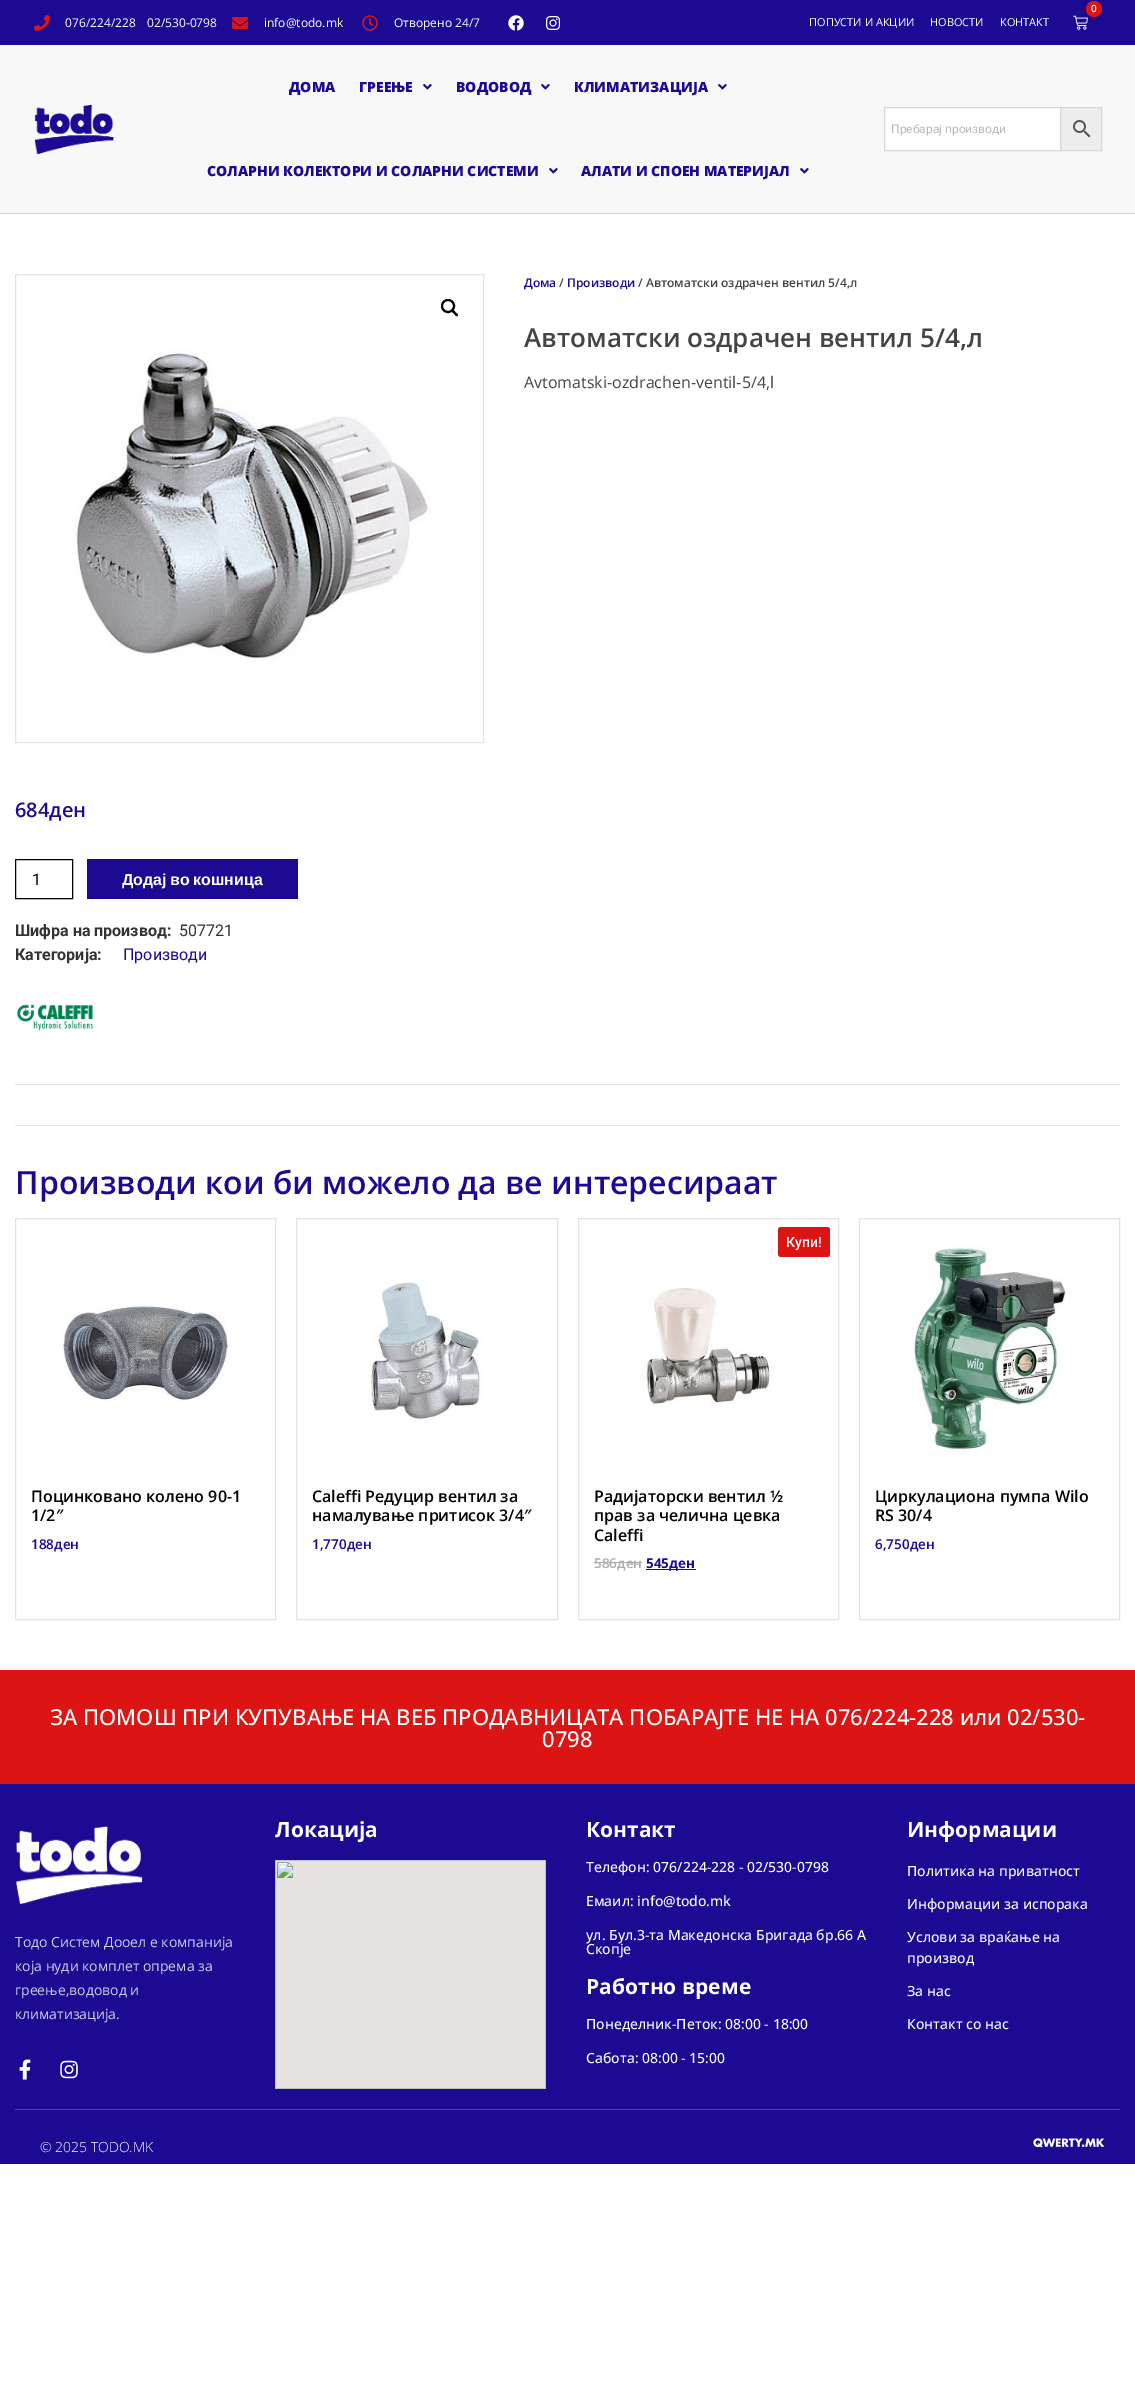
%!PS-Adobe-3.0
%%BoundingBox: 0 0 1135 2401
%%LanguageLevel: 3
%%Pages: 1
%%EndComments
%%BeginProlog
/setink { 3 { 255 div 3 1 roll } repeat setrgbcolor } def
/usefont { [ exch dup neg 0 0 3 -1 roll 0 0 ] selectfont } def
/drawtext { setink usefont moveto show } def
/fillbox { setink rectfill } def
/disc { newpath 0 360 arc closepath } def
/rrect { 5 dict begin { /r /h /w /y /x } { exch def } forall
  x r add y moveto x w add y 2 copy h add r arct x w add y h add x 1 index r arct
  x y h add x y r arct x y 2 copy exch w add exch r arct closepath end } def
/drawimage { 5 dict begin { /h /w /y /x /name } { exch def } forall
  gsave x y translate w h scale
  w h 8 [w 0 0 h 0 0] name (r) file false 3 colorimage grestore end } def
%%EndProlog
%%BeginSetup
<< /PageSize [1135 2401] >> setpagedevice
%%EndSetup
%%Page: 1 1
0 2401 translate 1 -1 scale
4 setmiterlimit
0 0 1135 2401 255 255 255 fillbox
0 0 1135 45 28 10 147 fillbox
(assets/img1.rgb) 34 15 16 16 drawimage
(076/224/228) 65 27 /OpenSans-Regular 12 255 255 255 drawtext
(02/530-0798) 147 27 /OpenSans-Regular 12 255 255 255 drawtext
(assets/img2.rgb) 232 17 16 12 drawimage
(info@todo.mk) 264 27 /OpenSans-Regular 12 255 255 255 drawtext
(assets/img3.rgb) 362 15 16 16 drawimage
(Отворено 24/7) 394 27 /OpenSans-Regular 12 255 255 255 drawtext
(assets/img4.rgb) 508 15 16 16 drawimage
(assets/img5.rgb) 546 16 14 14 drawimage
(assets/img6.rgb) 1073 15 15 15 drawimage
221 20 20 setink
1094 9 8 disc fill
(0) 1091 12 /OpenSans-SemiBold 10 255 255 255 drawtext
(ПОПУСТИ И АКЦИИ) 809 26 /OpenSans-Regular 11 255 255 255 drawtext
(НОВОСТИ) 930 26 /OpenSans-Regular 11 255 255 255 drawtext
(КОНТАКТ) 1000 26 /OpenSans-Regular 11 255 255 255 drawtext
0 45 1135 168 248 248 248 fillbox
0 213 1135 1 216 216 216 fillbox
(assets/img7.rgb) 34 104 80 51 drawimage
(ДОМА) 289 92 /OpenSans-ExtraBold 14 28 10 147 drawtext
(ГРЕЕЊЕ) 359 92 /OpenSans-ExtraBold 14 28 10 147 drawtext
(assets/img8.rgb) 423 84 9 6 drawimage
(ВОДОВОД) 456 92 /OpenSans-ExtraBold 14 28 10 147 drawtext
(assets/img8.rgb) 541 84 9 6 drawimage
(КЛИМАТИЗАЦИЈА) 574 92 /OpenSans-ExtraBold 14 28 10 147 drawtext
(assets/img8.rgb) 718 84 9 6 drawimage
(СОЛАРНИ КОЛЕКТОРИ И СОЛАРНИ СИСТЕМИ) 207 176 /OpenSans-ExtraBold 14 28 10 147 drawtext
(assets/img8.rgb) 549 168 9 6 drawimage
(АЛАТИ И СПОЕН МАТЕРИЈАЛ) 581 176 /OpenSans-ExtraBold 14 28 10 147 drawtext
(assets/img8.rgb) 800 168 9 6 drawimage
237 237 237 setink
1060.5 107.5 moveto 1101.5 107.5 lineto 1101.5 150.5 lineto 1060.5 150.5 lineto closepath gsave fill grestore
216 216 216 setink
stroke
255 255 255 setink
884.5 107.5 moveto 1060.5 107.5 lineto 1060.5 150.5 lineto 884.5 150.5 lineto closepath gsave fill grestore
216 216 216 setink
stroke
(Пребарај производи) 891 133 /Roboto-Regular 12 186 186 186 drawtext
(assets/img9.rgb) 1073 120 18 18 drawimage
(Дома) 524 287 /OpenSans-SemiBold 12 28 10 147 drawtext
(/) 559 287 /OpenSans-SemiBold 12 68 68 68 drawtext
(Производи) 567 287 /OpenSans-SemiBold 12 28 10 147 drawtext
(/ Автоматски оздрачен вентил 5/4,л) 638 287 /OpenSans-SemiBold 12 68 68 68 drawtext
(Автоматски оздрачен вентил 5/4,л) 524 347 /OpenSans-SemiBold 26 68 68 68 drawtext
(Avtomatski-ozdrachen-ventil-5/4,l) 524 388 /OpenSans-Regular 16 68 68 68 drawtext
227 227 227 setink
15.5 274.5 468 468 rectstroke
(assets/img10.rgb) 75 350 356 311 drawimage
0 0 0 setink
2 setlinewidth
448 306 6 disc stroke
452 310 moveto 453 309 455 311.5 455.5 312.5 curveto 456 313 459 314.5 457.5 316 curveto 456.5 317 454.5 314.5 454 313.5 curveto 453.5 313 450.5 311.5 452 310 curveto closepath fill
(684ден) 15 817 /OpenSans-SemiBold 20 28 10 147 drawtext
0 0 0 setink
1 setlinewidth
15.5 859.5 57 39 rectstroke
(1) 32 885 /Roboto-Regular 16 0 0 0 drawtext
87 859 211 40 28 10 147 fillbox
/LiberationSans-Bold 16 usefont
255 255 255 setink
122 885 moveto -1 0 32 (Додај во кошница) widthshow
(Шифра на производ:) 15 936 /Roboto-Bold 16 51 51 51 drawtext
(507721) 179 936 /Roboto-Regular 16 51 51 51 drawtext
(Категорија:) 15 960 /Roboto-Bold 16 51 51 51 drawtext
(Производи) 123 960 /Roboto-Regular 16 28 10 147 drawtext
(assets/img11.rgb) 17 1004 76 27 drawimage
15 1084 1105 1 227 227 227 fillbox
15 1125 1105 1 227 227 227 fillbox
(Производи кои би можело да ве интересираат) 15 1194 /OpenSans-SemiBold 32 28 10 147 drawtext
227 227 227 setink
15.5 1218.5 260 401 rectstroke
(assets/img12.rgb) 62 1305 170 100 drawimage
(Поцинковано колено 90-1) 31 1502 /OpenSans-SemiBold 16 0 0 0 drawtext
(1/2″) 31 1521 /OpenSans-SemiBold 16 0 0 0 drawtext
(188ден) 31 1549 /OpenSans-SemiBold 13.5 28 10 147 drawtext
227 227 227 setink
296.5 1218.5 261 401 rectstroke
(assets/img13.rgb) 368 1282 116 140 drawimage
(Caleffi Редуцир вентил за) 312 1502 /OpenSans-SemiBold 16 0 0 0 drawtext
(намалување притисок 3/4″) 312 1521 /OpenSans-SemiBold 16 0 0 0 drawtext
(1,770ден) 312 1549 /OpenSans-SemiBold 13.5 28 10 147 drawtext
227 227 227 setink
578.5 1218.5 260 401 rectstroke
221 20 20 setink
778 1227 52 30 3 rrect fill
(Купи!) 786 1247 /Roboto-Medium 14 255 255 255 drawtext
(assets/img14.rgb) 643 1287 128 118 drawimage
(Радијаторски вентил ½) 594 1502 /OpenSans-SemiBold 16 0 0 0 drawtext
(прав за челична цевка) 594 1521 /OpenSans-SemiBold 16 0 0 0 drawtext
(Caleffi) 594 1541 /OpenSans-SemiBold 16 0 0 0 drawtext
(586ден) 594 1568 /OpenSans-SemiBold 13.5 172 172 172 drawtext
594 1562 48 1 172 172 172 fillbox
646 1569 50 1 28 10 147 fillbox
(545ден) 646 1568 /OpenSans-Bold 13.5 28 10 147 drawtext
227 227 227 setink
859.5 1218.5 260 401 rectstroke
(assets/img15.rgb) 912 1246 158 208 drawimage
(Циркулациона пумпа Wilo) 875 1502 /OpenSans-SemiBold 16 0 0 0 drawtext
(RS 30/4) 875 1521 /OpenSans-SemiBold 16 0 0 0 drawtext
(6,750ден) 875 1549 /OpenSans-SemiBold 13.5 28 10 147 drawtext
0 1670 1135 114 221 20 20 fillbox
(ЗА ПОМОШ ПРИ КУПУВАЊЕ НА ВЕБ ПРОДАВНИЦАТА ПОБАРАЈТЕ НЕ НА 076/224-228 или 02/530-) 50 1725 /OpenSans-Medium 22 255 255 255 drawtext
(0798) 542 1747 /OpenSans-Medium 22 255 255 255 drawtext
0 1784 1135 380 28 10 147 fillbox
(assets/img16.rgb) 16 1826 127 79 drawimage
(Тодо Систем Дооел е компанија) 15 1947 /OpenSans-Regular 14 207 204 232 drawtext
(која нуди комплет опрема за) 15 1971 /OpenSans-Regular 14 207 204 232 drawtext
(греење,водовод и) 15 1995 /OpenSans-Regular 14 207 204 232 drawtext
(климатизација.) 15 2019 /OpenSans-Regular 14 207 204 232 drawtext
(assets/img17.rgb) 19 2059 12 21 drawimage
(assets/img18.rgb) 60 2060 18 19 drawimage
(Локација) 275 1837 /OpenSans-Bold 21 255 255 255 drawtext
(assets/img19.rgb) 275 1860 271 229 drawimage
(Контакт) 586 1837 /OpenSans-Bold 21 255 255 255 drawtext
(Телефон: 076/224-228 - 02/530-0798) 586 1872 /OpenSans-Medium 14 255 255 255 drawtext
(Емаил: info@todo.mk) 586 1906 /OpenSans-Medium 14 255 255 255 drawtext
(ул. Бул.3-та Македонска Бригада бр.66 А) 586 1940 /OpenSans-Medium 14 255 255 255 drawtext
(Скопје) 586 1954 /OpenSans-Medium 14 255 255 255 drawtext
(Работно време) 586 1994 /OpenSans-Bold 21 255 255 255 drawtext
(Понеделник-Петок: 08:00 - 18:00) 586 2029 /OpenSans-Medium 14 255 255 255 drawtext
(Сабота: 08:00 - 15:00) 586 2063 /OpenSans-Medium 14 255 255 255 drawtext
(Информации) 907 1837 /OpenSans-Bold 21 255 255 255 drawtext
(Политика на приватност) 907 1876 /OpenSans-Medium 14 255 255 255 drawtext
(Информации за испорака) 907 1909 /OpenSans-Medium 14 255 255 255 drawtext
(Услови за враќање на) 907 1942 /OpenSans-Medium 14 255 255 255 drawtext
(производ) 907 1963 /OpenSans-Medium 14 255 255 255 drawtext
(За нас) 907 1996 /OpenSans-Medium 14 255 255 255 drawtext
(Контакт со нас) 907 2029 /OpenSans-Medium 14 255 255 255 drawtext
15 2109 1105 1 76 61 170 fillbox
(© 2025 TODO.MK) 40 2152 /OpenSans-Light 14 255 255 255 drawtext
(assets/img20.rgb) 1033 2138 72 10 drawimage
showpage
%%EOF
